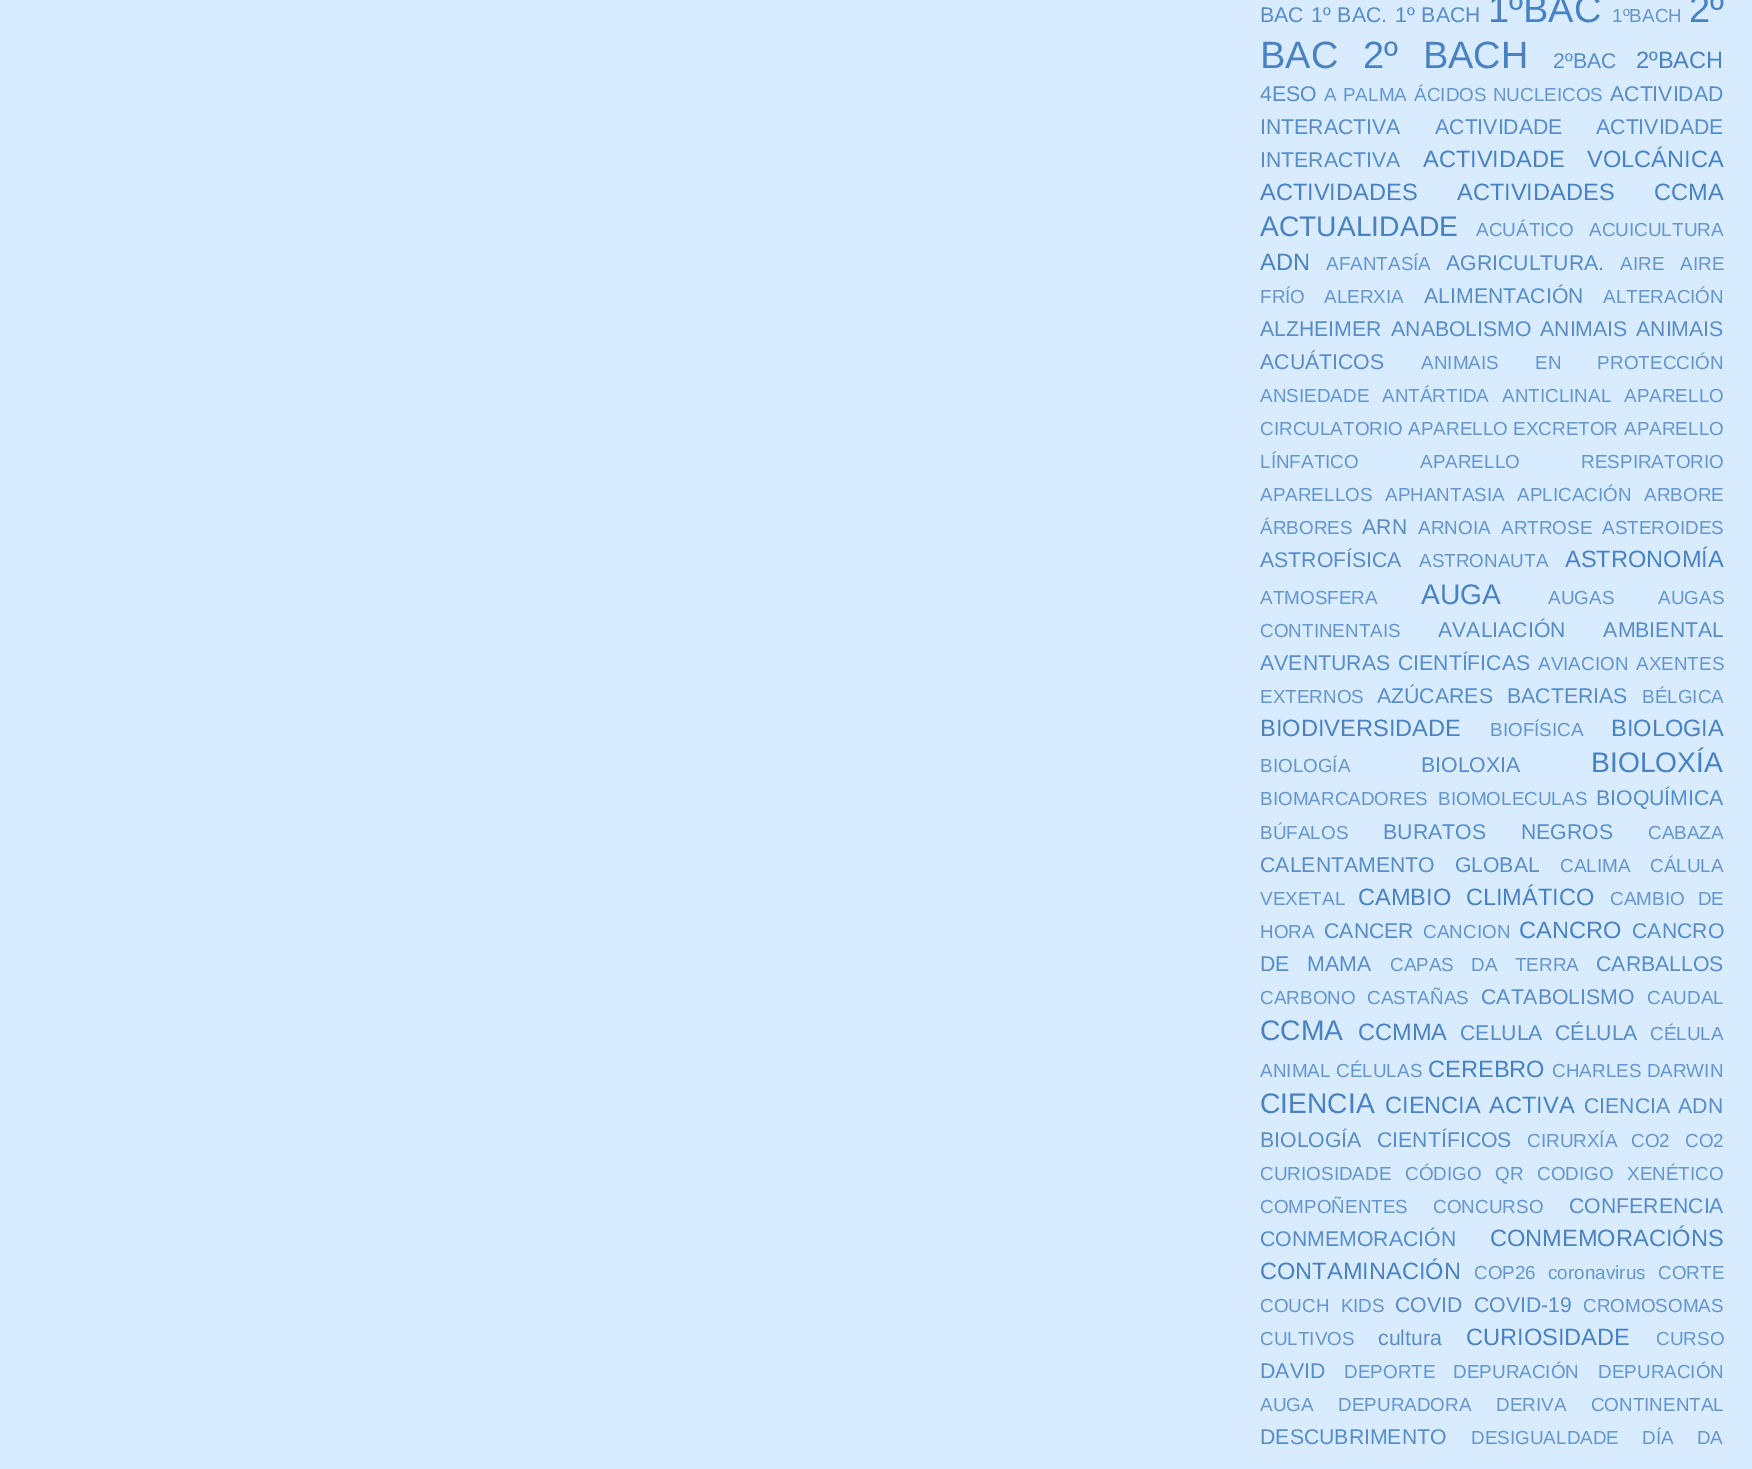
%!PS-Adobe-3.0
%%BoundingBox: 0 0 1752 1469
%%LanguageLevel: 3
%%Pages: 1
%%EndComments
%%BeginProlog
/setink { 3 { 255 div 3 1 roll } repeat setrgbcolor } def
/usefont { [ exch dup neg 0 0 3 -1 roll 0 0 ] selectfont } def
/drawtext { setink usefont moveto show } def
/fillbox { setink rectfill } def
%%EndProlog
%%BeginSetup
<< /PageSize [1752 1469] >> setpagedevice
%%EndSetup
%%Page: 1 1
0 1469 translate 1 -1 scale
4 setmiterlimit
0 0 1752 1469 217 236 255 fillbox
(BAC) 1260 22 /LiberationSans-Regular 21.25 87 141 200 drawtext
1311 22 moveto 1 0 32 (1º BAC.) widthshow
1395 22 moveto 1 0 32 (1º BACH) widthshow
(1ºBAC) 1488 22 /LiberationSans-Regular 38 72 130 194 drawtext
(1ºBACH) 1612 22 /LiberationSans-Regular 18.9 101 151 206 drawtext
(2º) 1689 22 /LiberationSans-Regular 38 72 130 194 drawtext
(BAC) 1260 68 /LiberationSans-Regular 38 72 130 194 drawtext
1363 68 moveto 14 0 32 (2º BACH) widthshow
(2ºBAC) 1553 68 /LiberationSans-Regular 21.25 87 141 200 drawtext
(2ºBACH) 1636 68 /LiberationSans-Regular 23.6 72 130 194 drawtext
(4ESO) 1260 101 /LiberationSans-Regular 21.25 87 141 200 drawtext
/LiberationSans-Regular 18.9 usefont
101 151 206 setink
1324 101 moveto 1 0 32 (A PALMA) widthshow
1414 101 moveto 1 0 32 (ÁCIDOS NUCLEICOS) widthshow
(ACTIVIDAD) 1610 101 /LiberationSans-Regular 21.25 87 141 200 drawtext
(INTERACTIVA) 1260 134 /LiberationSans-Regular 21.25 87 141 200 drawtext
(ACTIVIDADE) 1435 134 /LiberationSans-Regular 21.25 87 141 200 drawtext
(ACTIVIDADE) 1596 134 /LiberationSans-Regular 21.25 87 141 200 drawtext
(INTERACTIVA) 1260 167 /LiberationSans-Regular 21.25 87 141 200 drawtext
/LiberationSans-Regular 23.6 usefont
72 130 194 setink
1423 167 moveto 16 0 32 (ACTIVIDADE VOLCÁNICA) widthshow
(ACTIVIDADES) 1260 200 /LiberationSans-Regular 23.6 72 130 194 drawtext
1457 200 moveto 33 0 32 (ACTIVIDADES CCMA) widthshow
(ACTUALIDADE) 1260 236 /LiberationSans-Regular 28.25 72 130 194 drawtext
(ACUÁTICO) 1476 236 /LiberationSans-Regular 18.9 101 151 206 drawtext
(ACUICULTURA) 1589 236 /LiberationSans-Regular 18.9 101 151 206 drawtext
(ADN) 1260 270 /LiberationSans-Regular 23.6 72 130 194 drawtext
(AFANTASÍA) 1326 270 /LiberationSans-Regular 18.9 101 151 206 drawtext
(AGRICULTURA.) 1446 270 /LiberationSans-Regular 21.25 87 141 200 drawtext
(AIRE) 1620 270 /LiberationSans-Regular 18.9 101 151 206 drawtext
(AIRE) 1680 270 /LiberationSans-Regular 18.9 101 151 206 drawtext
(FRÍO) 1260 303 /LiberationSans-Regular 18.9 101 151 206 drawtext
(ALERXIA) 1324 303 /LiberationSans-Regular 18.9 101 151 206 drawtext
(ALIMENTACIÓN) 1424 303 /LiberationSans-Regular 21.25 87 141 200 drawtext
(ALTERACIÓN) 1603 303 /LiberationSans-Regular 18.9 101 151 206 drawtext
(ALZHEIMER) 1260 336 /LiberationSans-Regular 21.25 87 141 200 drawtext
(ANABOLISMO) 1391 336 /LiberationSans-Regular 21.25 87 141 200 drawtext
(ANIMAIS) 1540 336 /LiberationSans-Regular 21.25 87 141 200 drawtext
(ANIMAIS) 1636 336 /LiberationSans-Regular 21.25 87 141 200 drawtext
(ACUÁTICOS) 1260 369 /LiberationSans-Regular 21.25 87 141 200 drawtext
/LiberationSans-Regular 18.9 usefont
101 151 206 setink
1421 369 moveto 31 0 32 (ANIMAIS EN PROTECCIÓN) widthshow
(ANSIEDADE) 1260 402 /LiberationSans-Regular 18.9 101 151 206 drawtext
(ANTÁRTIDA) 1382 402 /LiberationSans-Regular 18.9 101 151 206 drawtext
(ANTICLINAL) 1502 402 /LiberationSans-Regular 18.9 101 151 206 drawtext
(APARELLO) 1624 402 /LiberationSans-Regular 18.9 101 151 206 drawtext
(CIRCULATORIO APARELLO EXCRETOR) 1260 435 /LiberationSans-Regular 18.9 101 151 206 drawtext
(APARELLO) 1624 435 /LiberationSans-Regular 18.9 101 151 206 drawtext
(LÍNFATICO) 1260 468 /LiberationSans-Regular 18.9 101 151 206 drawtext
1420 468 moveto 56 0 32 (APARELLO RESPIRATORIO) widthshow
(APARELLOS) 1260 501 /LiberationSans-Regular 18.9 101 151 206 drawtext
(APHANTASIA) 1385 501 /LiberationSans-Regular 18.9 101 151 206 drawtext
(APLICACIÓN) 1517 501 /LiberationSans-Regular 18.9 101 151 206 drawtext
(ARBORE) 1644 501 /LiberationSans-Regular 18.9 101 151 206 drawtext
(ÁRBORES) 1260 534 /LiberationSans-Regular 18.9 101 151 206 drawtext
(ARN) 1362 534 /LiberationSans-Regular 21.25 87 141 200 drawtext
(ARNOIA) 1418 534 /LiberationSans-Regular 18.9 101 151 206 drawtext
(ARTROSE) 1501 534 /LiberationSans-Regular 18.9 101 151 206 drawtext
(ASTEROIDES) 1602 534 /LiberationSans-Regular 18.9 101 151 206 drawtext
(ASTROFÍSICA) 1260 567 /LiberationSans-Regular 21.25 87 141 200 drawtext
(ASTRONAUTA) 1419 567 /LiberationSans-Regular 18.9 101 151 206 drawtext
(ASTRONOMÍA) 1565 567 /LiberationSans-Regular 23.6 72 130 194 drawtext
(ATMOSFERA) 1260 604 /LiberationSans-Regular 18.9 101 151 206 drawtext
(AUGA) 1421 604 /LiberationSans-Regular 28.25 72 130 194 drawtext
(AUGAS) 1548 604 /LiberationSans-Regular 18.9 101 151 206 drawtext
(AUGAS) 1658 604 /LiberationSans-Regular 18.9 101 151 206 drawtext
(CONTINENTAIS) 1260 637 /LiberationSans-Regular 18.9 101 151 206 drawtext
/LiberationSans-Regular 21.25 usefont
87 141 200 setink
1438 637 moveto 32 0 32 (AVALIACIÓN AMBIENTAL) widthshow
1260 670 moveto 2 0 32 (AVENTURAS CIENTÍFICAS) widthshow
(AVIACION) 1538 670 /LiberationSans-Regular 18.9 101 151 206 drawtext
(AXENTES) 1636 670 /LiberationSans-Regular 18.9 101 151 206 drawtext
(EXTERNOS) 1260 703 /LiberationSans-Regular 18.9 101 151 206 drawtext
(AZÚCARES) 1377 703 /LiberationSans-Regular 21.25 87 141 200 drawtext
(BACTERIAS) 1507 703 /LiberationSans-Regular 21.25 87 141 200 drawtext
(BÉLGICA) 1642 703 /LiberationSans-Regular 18.9 101 151 206 drawtext
(BIODIVERSIDADE) 1260 736 /LiberationSans-Regular 23.6 72 130 194 drawtext
(BIOFÍSICA) 1490 736 /LiberationSans-Regular 18.9 101 151 206 drawtext
(BIOLOGIA) 1611 736 /LiberationSans-Regular 23.6 72 130 194 drawtext
(BIOLOGÍA) 1260 772 /LiberationSans-Regular 18.9 101 151 206 drawtext
(BIOLOXIA) 1421 772 /LiberationSans-Regular 21.25 87 141 200 drawtext
(BIOLOXÍA) 1591 772 /LiberationSans-Regular 28.25 72 130 194 drawtext
(BIOMARCADORES) 1260 805 /LiberationSans-Regular 18.9 101 151 206 drawtext
(BIOMOLECULAS) 1438 805 /LiberationSans-Regular 18.9 101 151 206 drawtext
(BIOQUÍMICA) 1596 805 /LiberationSans-Regular 21.25 87 141 200 drawtext
(BÚFALOS) 1260 839 /LiberationSans-Regular 18.9 101 151 206 drawtext
/LiberationSans-Regular 21.25 usefont
87 141 200 setink
1383 839 moveto 29 0 32 (BURATOS NEGROS) widthshow
(CABAZA) 1648 839 /LiberationSans-Regular 18.9 101 151 206 drawtext
/LiberationSans-Regular 21.25 usefont
87 141 200 setink
1260 872 moveto 14 0 32 (CALENTAMENTO GLOBAL) widthshow
(CALIMA) 1560 872 /LiberationSans-Regular 18.9 101 151 206 drawtext
(CÁLULA) 1650 872 /LiberationSans-Regular 18.9 101 151 206 drawtext
(VEXETAL) 1260 905 /LiberationSans-Regular 18.9 101 151 206 drawtext
/LiberationSans-Regular 23.6 usefont
72 130 194 setink
1358 905 moveto 8 0 32 (CAMBIO CLIMÁTICO) widthshow
/LiberationSans-Regular 18.9 usefont
101 151 206 setink
1610 905 moveto 8 0 32 (CAMBIO DE) widthshow
(HORA) 1260 938 /LiberationSans-Regular 18.9 101 151 206 drawtext
(CANCER) 1324 938 /LiberationSans-Regular 21.25 87 141 200 drawtext
(CANCION) 1423 938 /LiberationSans-Regular 18.9 101 151 206 drawtext
(CANCRO) 1519 938 /LiberationSans-Regular 23.6 72 130 194 drawtext
(CANCRO) 1632 938 /LiberationSans-Regular 21.25 87 141 200 drawtext
1260 971 moveto 12 0 32 (DE MAMA) widthshow
/LiberationSans-Regular 18.9 usefont
101 151 206 setink
1390 971 moveto 12 0 32 (CAPAS DA TERRA) widthshow
(CARBALLOS) 1596 971 /LiberationSans-Regular 21.25 87 141 200 drawtext
(CARBONO) 1260 1004 /LiberationSans-Regular 18.9 101 151 206 drawtext
(CASTAÑAS) 1367 1004 /LiberationSans-Regular 18.9 101 151 206 drawtext
(CATABOLISMO) 1481 1004 /LiberationSans-Regular 21.25 87 141 200 drawtext
(CAUDAL) 1647 1004 /LiberationSans-Regular 18.9 101 151 206 drawtext
(CCMA) 1260 1040 /LiberationSans-Regular 28.25 72 130 194 drawtext
(CCMMA) 1358 1040 /LiberationSans-Regular 23.6 72 130 194 drawtext
(CELULA) 1460 1040 /LiberationSans-Regular 21.25 87 141 200 drawtext
(CÉLULA) 1555 1040 /LiberationSans-Regular 21.25 87 141 200 drawtext
(CÉLULA) 1650 1040 /LiberationSans-Regular 18.9 101 151 206 drawtext
(ANIMAL) 1260 1077 /LiberationSans-Regular 18.9 101 151 206 drawtext
(CÉLULAS) 1336 1077 /LiberationSans-Regular 18.9 101 151 206 drawtext
(CEREBRO) 1428 1077 /LiberationSans-Regular 23.6 72 130 194 drawtext
(CHARLES DARWIN) 1552 1077 /LiberationSans-Regular 18.9 101 151 206 drawtext
(CIENCIA) 1260 1113 /LiberationSans-Regular 28.25 72 130 194 drawtext
/LiberationSans-Regular 23.6 usefont
1385 1113 moveto 2 0 32 (CIENCIA ACTIVA) widthshow
/LiberationSans-Regular 21.25 usefont
87 141 200 setink
1584 1113 moveto 2 0 32 (CIENCIA ADN) widthshow
(BIOLOGÍA) 1260 1147 /LiberationSans-Regular 21.25 87 141 200 drawtext
(CIENTÍFICOS) 1377 1147 /LiberationSans-Regular 21.25 87 141 200 drawtext
(CIRURXÍA) 1527 1147 /LiberationSans-Regular 18.9 101 151 206 drawtext
(CO2) 1631 1147 /LiberationSans-Regular 18.9 101 151 206 drawtext
(CO2) 1685 1147 /LiberationSans-Regular 18.9 101 151 206 drawtext
(CURIOSIDADE) 1260 1180 /LiberationSans-Regular 18.9 101 151 206 drawtext
1405 1180 moveto 8 0 32 (CÓDIGO QR) widthshow
1537 1180 moveto 8 0 32 (CODIGO XENÉTICO) widthshow
(COMPOÑENTES) 1260 1213 /LiberationSans-Regular 18.9 101 151 206 drawtext
(CONCURSO) 1433 1213 /LiberationSans-Regular 18.9 101 151 206 drawtext
(CONFERENCIA) 1569 1213 /LiberationSans-Regular 21.25 87 141 200 drawtext
(CONMEMORACIÓN) 1260 1246 /LiberationSans-Regular 21.25 87 141 200 drawtext
(CONMEMORACIÓNS) 1490 1246 /LiberationSans-Regular 23.6 72 130 194 drawtext
(CONTAMINACIÓN) 1260 1279 /LiberationSans-Regular 23.6 72 130 194 drawtext
(COP26) 1474 1279 /LiberationSans-Regular 18.9 101 151 206 drawtext
(coronavirus) 1548 1279 /LiberationSans-Regular 18.9 101 151 206 drawtext
(CORTE) 1658 1279 /LiberationSans-Regular 18.9 101 151 206 drawtext
1260 1312 moveto 6 0 32 (COUCH KIDS) widthshow
(COVID) 1395 1312 /LiberationSans-Regular 21.25 87 141 200 drawtext
(COVID-19) 1474 1312 /LiberationSans-Regular 21.25 87 141 200 drawtext
(CROMOSOMAS) 1583 1312 /LiberationSans-Regular 18.9 101 151 206 drawtext
(CULTIVOS) 1260 1345 /LiberationSans-Regular 18.9 101 151 206 drawtext
(cultura) 1378 1345 /LiberationSans-Regular 21.25 87 141 200 drawtext
(CURIOSIDADE) 1466 1345 /LiberationSans-Regular 23.6 72 130 194 drawtext
(CURSO) 1656 1345 /LiberationSans-Regular 18.9 101 151 206 drawtext
(DAVID) 1260 1378 /LiberationSans-Regular 21.25 87 141 200 drawtext
(DEPORTE) 1344 1378 /LiberationSans-Regular 18.9 101 151 206 drawtext
(DEPURACIÓN) 1453 1378 /LiberationSans-Regular 18.9 101 151 206 drawtext
(DEPURACIÓN) 1598 1378 /LiberationSans-Regular 18.9 101 151 206 drawtext
(AUGA) 1260 1411 /LiberationSans-Regular 18.9 101 151 206 drawtext
(DEPURADORA) 1338 1411 /LiberationSans-Regular 18.9 101 151 206 drawtext
1496 1411 moveto 19 0 32 (DERIVA CONTINENTAL) widthshow
(DESCUBRIMENTO) 1260 1444 /LiberationSans-Regular 21.25 87 141 200 drawtext
(DESIGUALDADE) 1471 1444 /LiberationSans-Regular 18.9 101 151 206 drawtext
1642 1444 moveto 18 0 32 (DÍA DA) widthshow
showpage
%%EOF
